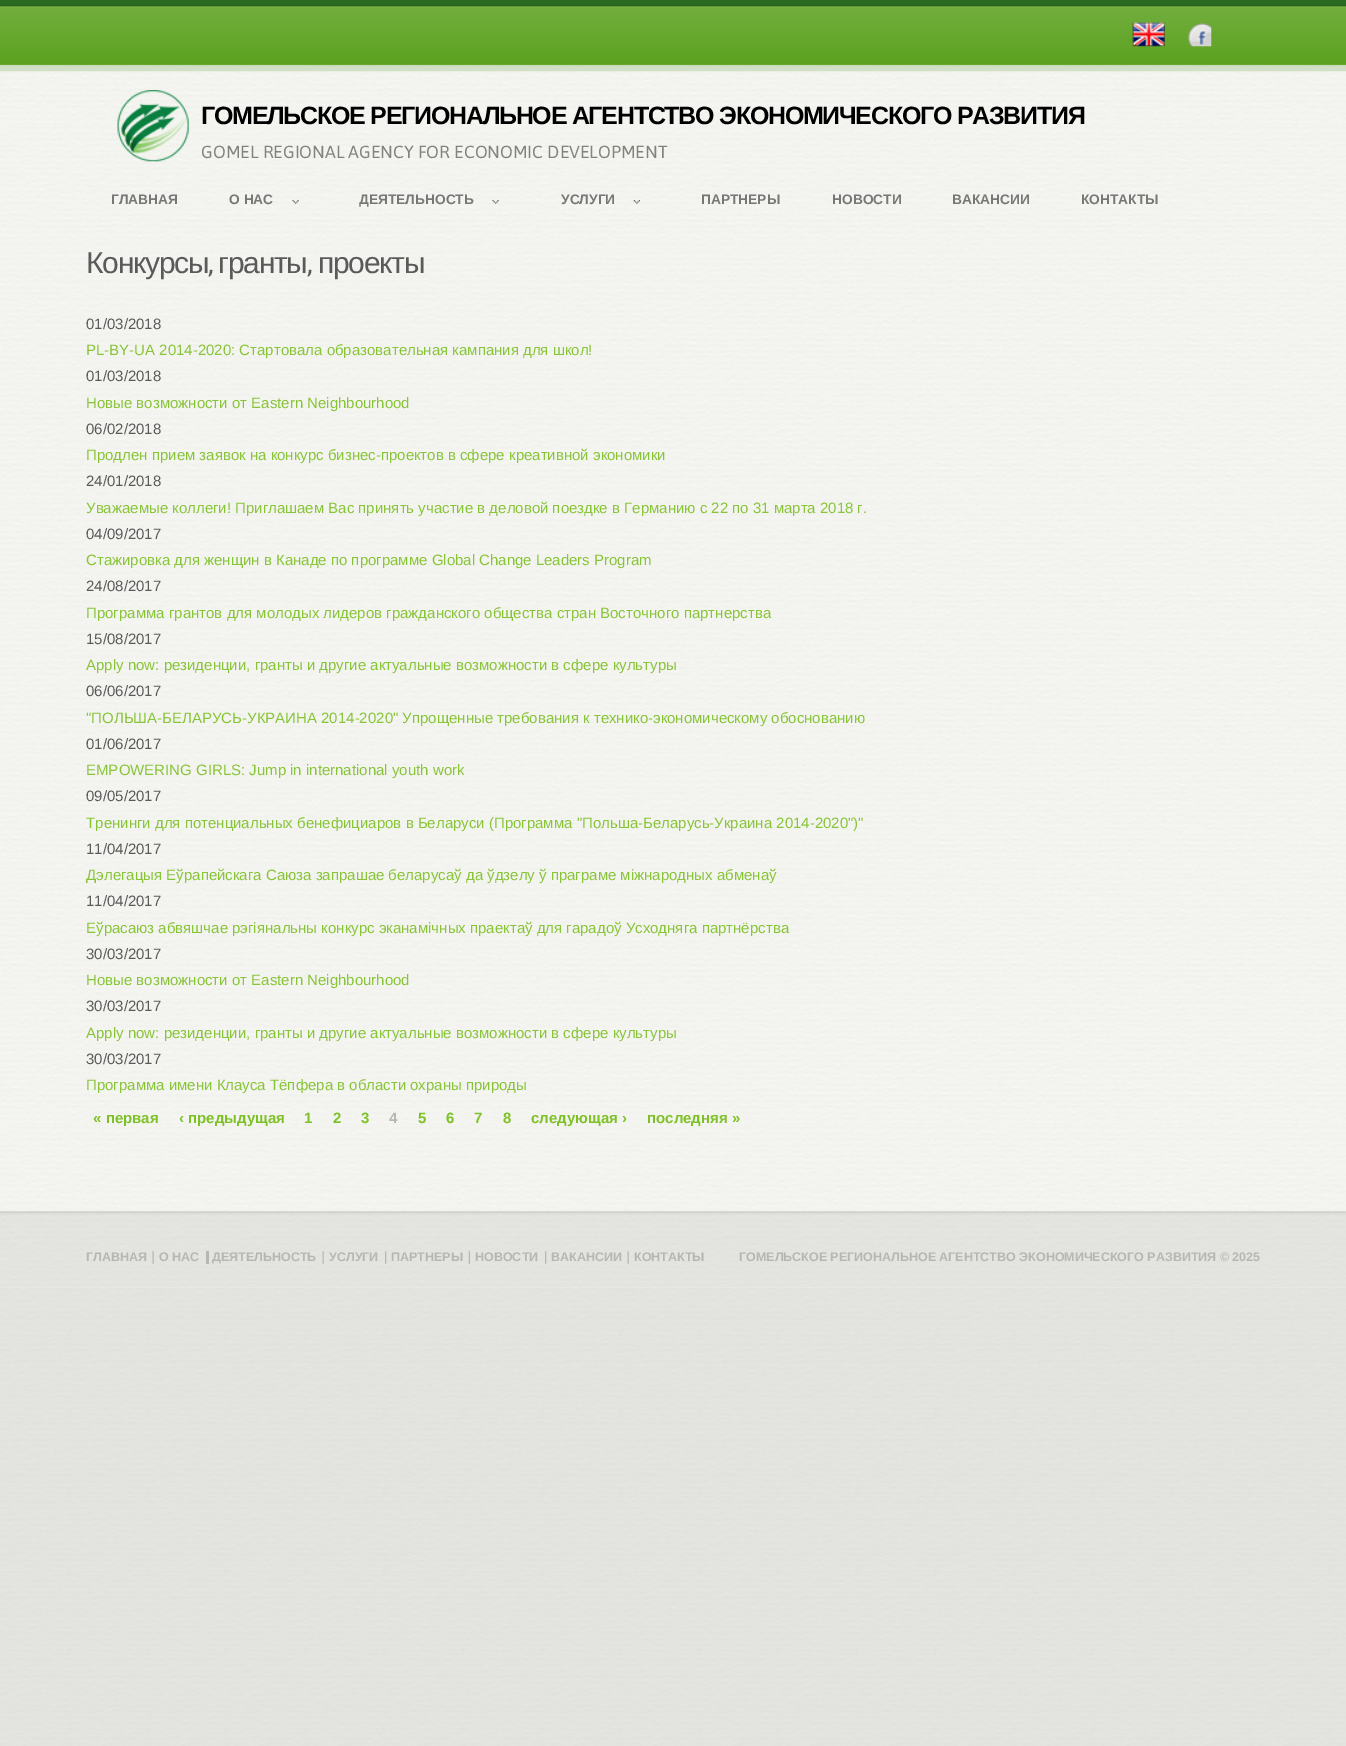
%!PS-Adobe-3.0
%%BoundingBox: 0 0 1346 1746
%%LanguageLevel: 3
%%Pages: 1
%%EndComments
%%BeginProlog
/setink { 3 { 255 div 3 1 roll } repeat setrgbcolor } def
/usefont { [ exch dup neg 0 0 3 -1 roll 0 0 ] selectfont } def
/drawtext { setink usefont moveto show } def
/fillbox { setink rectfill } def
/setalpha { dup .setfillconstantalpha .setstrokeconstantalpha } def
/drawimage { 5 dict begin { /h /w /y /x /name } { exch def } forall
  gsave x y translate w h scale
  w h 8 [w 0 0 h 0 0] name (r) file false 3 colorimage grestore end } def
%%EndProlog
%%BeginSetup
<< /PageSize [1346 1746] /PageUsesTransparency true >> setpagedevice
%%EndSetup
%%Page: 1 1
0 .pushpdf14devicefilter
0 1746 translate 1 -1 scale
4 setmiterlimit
0 0 1346 1746 255 255 255 fillbox
(assets/img1.rgb) 0 1287 1346 459 drawimage
(assets/img2.rgb) 0 64 1346 1224 drawimage
(assets/img3.rgb) 0 0 1346 72 drawimage
(assets/img4.rgb) 1132 22 33 25 drawimage
(assets/img5.rgb) 1187 22 25 25 drawimage
(assets/img6.rgb) 117 90 72 72 drawimage
/LiberationSans-Bold 25 usefont
0 0 0 setink
201 124 moveto -1.25 0 (ГОМЕЛЬСКОЕ РЕГИОНАЛЬНОЕ АГЕНТСТВО ЭКОНОМИЧЕСКОГО РАЗВИТИЯ) ashow
(GOMEL REGIONAL AGENCY FOR ECONOMIC DEVELOPMENT) 201 158 /Asap-Regular 17.5 129 132 124 drawtext
(ГЛАВНАЯ) 111 204 /LiberationSans-Bold 13.75 119 119 119 drawtext
(О НАС) 229 204 /LiberationSans-Bold 13.75 119 119 119 drawtext
(assets/img7.rgb) 292 200 7 4 drawimage
(ДЕЯТЕЛЬНОСТЬ) 359 204 /LiberationSans-Bold 13.75 119 119 119 drawtext
(assets/img8.rgb) 492 200 7 4 drawimage
(УСЛУГИ) 561 204 /LiberationSans-Bold 13.75 119 119 119 drawtext
(assets/img9.rgb) 633 200 7 4 drawimage
(ПАРТНЕРЫ) 701 204 /LiberationSans-Bold 13.75 119 119 119 drawtext
(НОВОСТИ) 832 204 /LiberationSans-Bold 13.75 119 119 119 drawtext
(ВАКАНСИИ) 952 204 /LiberationSans-Bold 13.75 119 119 119 drawtext
(КОНТАКТЫ) 1081 204 /LiberationSans-Bold 13.75 119 119 119 drawtext
/LiberationSans-Regular 30 usefont
90 90 90 setink
86 273 moveto -1.25 0 (Конкурсы) ashow
/Asap-Regular 30 usefont
208 273 moveto -1.25 0 (,) ashow
/LiberationSans-Regular 30 usefont
218 273 moveto -1.25 0 (гранты) ashow
/Asap-Regular 30 usefont
307 273 moveto -1.25 0 (,) ashow
/LiberationSans-Regular 30 usefont
318 273 moveto -1.25 0 (проекты) ashow
(01/03/2018) 86 329 /LiberationSans-Regular 15 90 90 90 drawtext
(PL-BY-UA 2014-2020: Стартовала образовательная кампания для школ!) 86 355 /LiberationSans-Regular 15 136 196 55 drawtext
(01/03/2018) 86 381 /LiberationSans-Regular 15 90 90 90 drawtext
(Новые возможности от Eastern Neighbourhood) 86 408 /LiberationSans-Regular 15 136 196 55 drawtext
(06/02/2018) 86 434 /LiberationSans-Regular 15 90 90 90 drawtext
(Продлен прием заявок на конкурс бизнес-проектов в сфере креативной экономики) 86 460 /LiberationSans-Regular 15 136 196 55 drawtext
(24/01/2018) 86 486 /LiberationSans-Regular 15 90 90 90 drawtext
(Уважаемые коллеги! Приглашаем Вас принять участие в деловой поездке в Германию с 22 по 31 марта 2018 г.) 86 513 /LiberationSans-Regular 15 136 196 55 drawtext
(04/09/2017) 86 539 /LiberationSans-Regular 15 90 90 90 drawtext
(Стажировка для женщин в Канаде по программе Global Change Leaders Program) 86 565 /LiberationSans-Regular 15 136 196 55 drawtext
(24/08/2017) 86 591 /LiberationSans-Regular 15 90 90 90 drawtext
(Программа грантов для молодых лидеров гражданского общества стран Восточного партнерства) 86 618 /LiberationSans-Regular 15 136 196 55 drawtext
(15/08/2017) 86 644 /LiberationSans-Regular 15 90 90 90 drawtext
(Apply now: резиденции, гранты и другие актуальные возможности в сфере культуры) 86 670 /LiberationSans-Regular 15 136 196 55 drawtext
(06/06/2017) 86 696 /LiberationSans-Regular 15 90 90 90 drawtext
("ПОЛЬША-БЕЛАРУСЬ-УКРАИНА 2014-2020" Упрощенные требования к технико-экономическому обоснованию) 86 723 /LiberationSans-Regular 15 136 196 55 drawtext
(01/06/2017) 86 749 /LiberationSans-Regular 15 90 90 90 drawtext
(EMPOWERING GIRLS: Jump in international youth work) 86 775 /LiberationSans-Regular 15 136 196 55 drawtext
(09/05/2017) 86 801 /LiberationSans-Regular 15 90 90 90 drawtext
(Тренинги для потенциальных бенефициаров в Беларуси \(Программа "Польша-Беларусь-Украина 2014-2020"\)") 86 828 /LiberationSans-Regular 15 136 196 55 drawtext
(11/04/2017) 86 854 /LiberationSans-Regular 15 90 90 90 drawtext
gsave
86 245 1175 891 rectclip
(Дэлегацыя Еўрапейскага Саюза запрашае беларусаў да ўдзелу ў праграме міжнародных абменаў) 86 880 /LiberationSans-Regular 15 136 196 55 drawtext
grestore
(11/04/2017) 86 906 /LiberationSans-Regular 15 90 90 90 drawtext
(Еўрасаюз абвяшчае рэгіянальны конкурс эканамічных праектаў для гарадоў Усходняга партнёрства) 86 933 /LiberationSans-Regular 15 136 196 55 drawtext
(30/03/2017) 86 959 /LiberationSans-Regular 15 90 90 90 drawtext
(Новые возможности от Eastern Neighbourhood) 86 985 /LiberationSans-Regular 15 136 196 55 drawtext
(30/03/2017) 86 1011 /LiberationSans-Regular 15 90 90 90 drawtext
(Apply now: резиденции, гранты и другие актуальные возможности в сфере культуры) 86 1038 /LiberationSans-Regular 15 136 196 55 drawtext
(30/03/2017) 86 1064 /LiberationSans-Regular 15 90 90 90 drawtext
(Программа имени Клауса Тёпфера в области охраны природы) 86 1090 /LiberationSans-Regular 15 136 196 55 drawtext
(« первая) 93 1123 /LiberationSans-Bold 15 126 193 39 drawtext
(‹ предыдущая) 179 1123 /LiberationSans-Bold 15 126 193 39 drawtext
(1) 304 1123 /LiberationSans-Bold 15 126 193 39 drawtext
(2) 333 1123 /LiberationSans-Bold 15 126 193 39 drawtext
(3) 361 1123 /LiberationSans-Bold 15 126 193 39 drawtext
(4) 389 1123 /LiberationSans-Bold 15 182 183 181 drawtext
(5) 418 1123 /LiberationSans-Bold 15 126 193 39 drawtext
(6) 446 1123 /LiberationSans-Bold 15 126 193 39 drawtext
(7) 474 1123 /LiberationSans-Bold 15 126 193 39 drawtext
(8) 503 1123 /LiberationSans-Bold 15 126 193 39 drawtext
(следующая ›) 531 1123 /LiberationSans-Bold 15 126 193 39 drawtext
(последняя ») 647 1123 /LiberationSans-Bold 15 126 193 39 drawtext
(assets/img10.rgb) 0 1211 1346 4 drawimage
(assets/img11.rgb) 0 1215 1346 73 drawimage
(ГЛАВНАЯ) 86 1261 /LiberationSans-Bold 12.5 182 183 181 drawtext
(assets/img12.rgb) 152 1251 2 13 drawimage
(О НАС) 159 1261 /LiberationSans-Bold 12.5 182 183 181 drawtext
0.42 setalpha
206 1251 3 13 119 119 119 fillbox
1 setalpha
(ДЕЯТЕЛЬНОСТЬ) 212 1261 /LiberationSans-Bold 12.5 182 183 181 drawtext
(assets/img13.rgb) 322 1251 2 13 drawimage
(УСЛУГИ) 329 1261 /LiberationSans-Bold 12.5 182 183 181 drawtext
(assets/img14.rgb) 385 1251 2 13 drawimage
(ПАРТНЕРЫ) 391 1261 /LiberationSans-Bold 12.5 182 183 181 drawtext
(assets/img15.rgb) 468 1251 2 13 drawimage
(НОВОСТИ) 475 1261 /LiberationSans-Bold 12.5 182 183 181 drawtext
(assets/img16.rgb) 545 1251 2 13 drawimage
(ВАКАНСИИ) 551 1261 /LiberationSans-Bold 12.5 182 183 181 drawtext
(assets/img17.rgb) 627 1251 2 13 drawimage
(КОНТАКТЫ) 634 1261 /LiberationSans-Bold 12.5 182 183 181 drawtext
(ГОМЕЛЬСКОЕ РЕГИОНАЛЬНОЕ АГЕНТСТВО ЭКОНОМИЧЕСКОГО РАЗВИТИЯ © 2025) 739 1261 /LiberationSans-Bold 12.5 182 183 181 drawtext
.poppdf14devicefilter showpage
%%EOF
